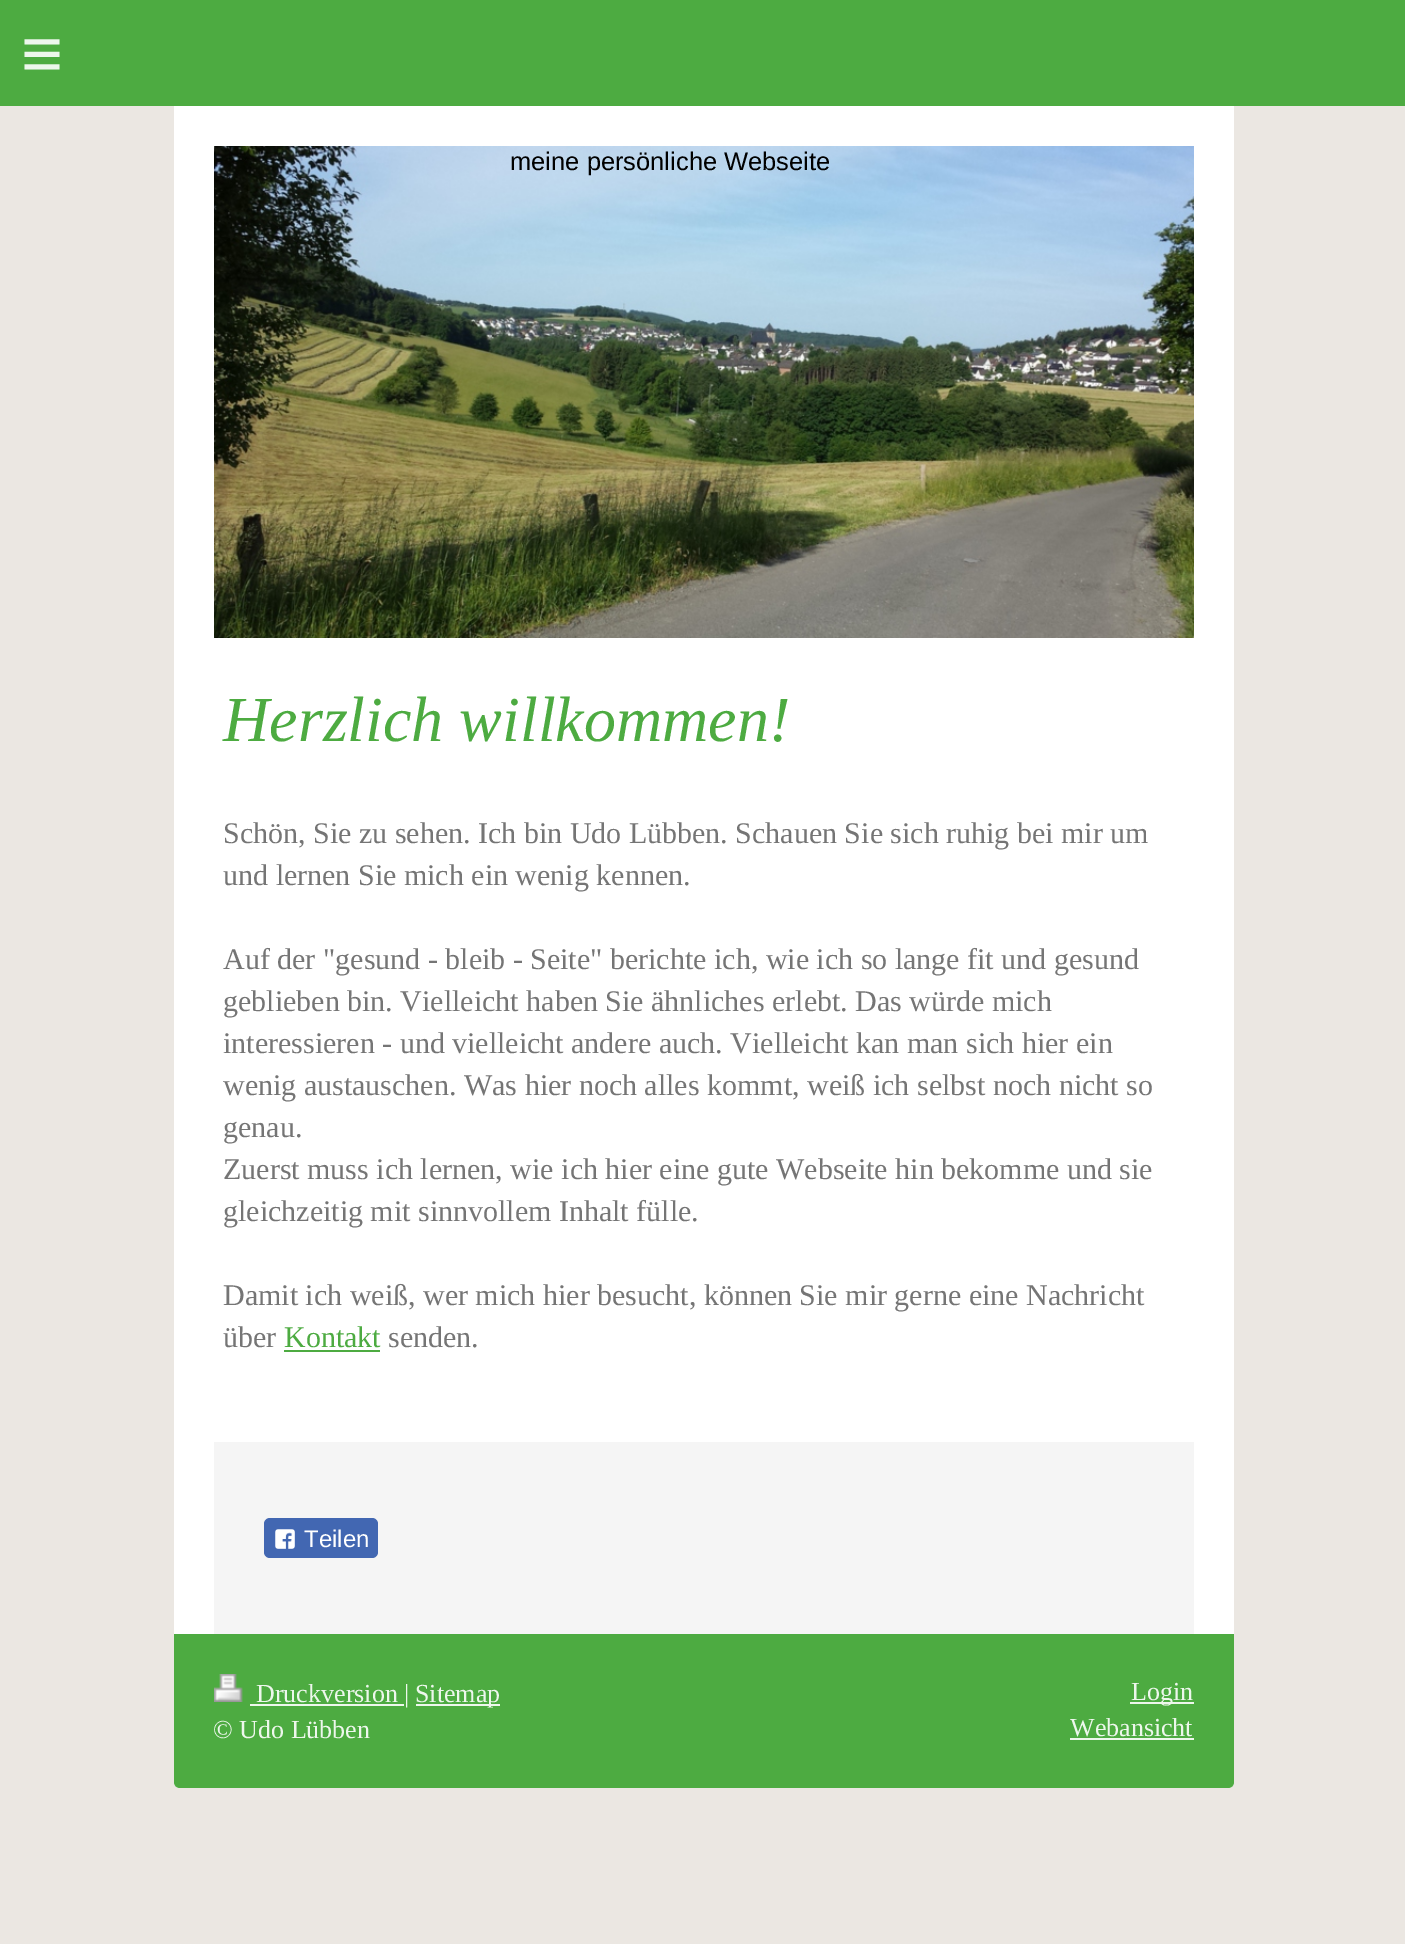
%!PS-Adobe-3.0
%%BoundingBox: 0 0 1405 1944
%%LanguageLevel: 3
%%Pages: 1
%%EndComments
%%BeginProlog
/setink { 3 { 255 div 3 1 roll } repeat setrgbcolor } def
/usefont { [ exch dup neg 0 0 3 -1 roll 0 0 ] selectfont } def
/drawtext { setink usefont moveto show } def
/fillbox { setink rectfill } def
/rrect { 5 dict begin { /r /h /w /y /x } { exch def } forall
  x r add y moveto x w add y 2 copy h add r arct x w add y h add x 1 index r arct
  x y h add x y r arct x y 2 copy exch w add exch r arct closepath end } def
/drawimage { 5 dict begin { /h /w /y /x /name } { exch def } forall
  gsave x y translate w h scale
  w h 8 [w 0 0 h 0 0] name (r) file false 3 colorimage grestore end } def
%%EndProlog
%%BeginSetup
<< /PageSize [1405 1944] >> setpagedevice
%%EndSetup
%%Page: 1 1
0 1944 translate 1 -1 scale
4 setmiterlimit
0 0 1405 1944 235 231 226 fillbox
255 255 255 setink
174 60 moveto 1234 60 lineto 1234 1782 lineto 1234 1785.5 1231.5 1788 1228 1788 curveto 180 1788 lineto 176.5 1788 174 1785.5 174 1782 curveto closepath fill
0 0 1405 106 77 171 65 fillbox
/LiberationSans-Regular 72 usefont
237 247 236 setink
21 78 moveto 21 0 (≡) ashow
(assets/img1.rgb) 214 146 980 492 drawimage
(meine persönliche Webseite) 510 170 /LiberationSans-Regular 25.5 0 0 0 drawtext
(Herzlich willkommen!) 223 741 /LiberationSerif-Italic 64 77 171 65 drawtext
(Schön, Sie zu sehen. Ich bin Udo Lübben. Schauen Sie sich ruhig bei mir um) 223 843 /LiberationSerif-Regular 30 117 117 117 drawtext
(und lernen Sie mich ein wenig kennen.) 223 885 /LiberationSerif-Regular 30 117 117 117 drawtext
(Auf der "gesund - bleib - Seite" berichte ich, wie ich so lange fit und gesund) 223 969 /LiberationSerif-Regular 30 117 117 117 drawtext
(geblieben bin. Vielleicht haben Sie ähnliches erlebt. Das würde mich) 223 1011 /LiberationSerif-Regular 30 117 117 117 drawtext
(interessieren - und vielleicht andere auch. Vielleicht kan man sich hier ein) 223 1053 /LiberationSerif-Regular 30 117 117 117 drawtext
(wenig austauschen. Was hier noch alles kommt, weiß ich selbst noch nicht so) 223 1095 /LiberationSerif-Regular 30 117 117 117 drawtext
(genau.) 223 1137 /LiberationSerif-Regular 30 117 117 117 drawtext
(Zuerst muss ich lernen, wie ich hier eine gute Webseite hin bekomme und sie) 223 1179 /LiberationSerif-Regular 30 117 117 117 drawtext
(gleichzeitig mit sinnvollem Inhalt fülle.) 223 1221 /LiberationSerif-Regular 30 117 117 117 drawtext
(Damit ich weiß, wer mich hier besucht, können Sie mir gerne eine Nachricht) 223 1305 /LiberationSerif-Regular 30 117 117 117 drawtext
(über) 223 1347 /LiberationSerif-Regular 30 117 117 117 drawtext
(Kontakt) 284 1347 /LiberationSerif-Regular 30 77 171 65 drawtext
284 1350 96 2 77 171 65 fillbox
(senden.) 388 1347 /LiberationSerif-Regular 30 117 117 117 drawtext
214 1442 980 192 245 245 245 fillbox
66 103 178 setink
264 1518 114 40 6 rrect fill
(assets/img2.rgb) 275 1529 20 20 drawimage
(Teilen) 304 1547 /LiberationSans-Regular 24 255 255 255 drawtext
77 171 65 setink
174 1634 moveto 1234 1634 lineto 1234 1782 lineto 1234 1785.5 1231.5 1788 1228 1788 curveto 180 1788 lineto 176.5 1788 174 1785.5 174 1782 curveto closepath fill
(assets/img3.rgb) 214 1674 29 28 drawimage
250 1704 154 2 237 247 236 fillbox
(Druckversion |) 256 1702 /LiberationSerif-Regular 26 237 247 236 drawtext
416 1704 84 2 237 247 236 fillbox
(Sitemap) 415 1702 /LiberationSerif-Regular 26 237 247 236 drawtext
(© Udo Lübben) 213 1738 /LiberationSerif-Regular 26 237 247 236 drawtext
1130 1702 64 2 237 247 236 fillbox
(Login) 1131 1700 /LiberationSerif-Regular 26 237 247 236 drawtext
(Webansicht) 1070 1736 /LiberationSerif-Regular 26 237 247 236 drawtext
1070 1738 124 2 237 247 236 fillbox
showpage
%%EOF
